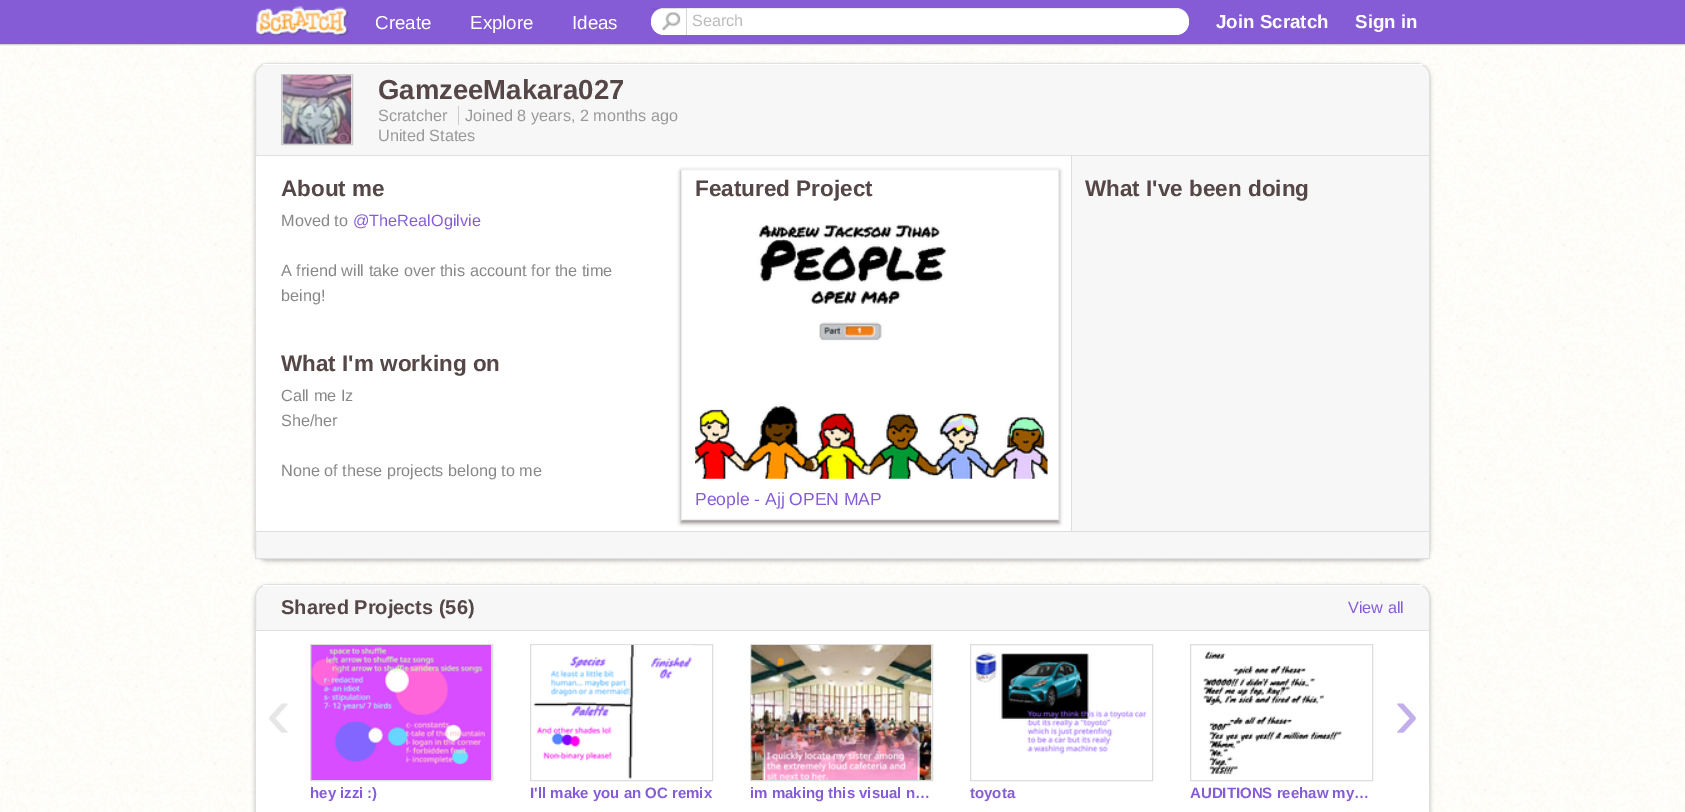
%!PS-Adobe-3.0
%%BoundingBox: 0 0 1685 812
%%LanguageLevel: 3
%%Pages: 1
%%EndComments
%%BeginProlog
/setink { 3 { 255 div 3 1 roll } repeat setrgbcolor } def
/usefont { [ exch dup neg 0 0 3 -1 roll 0 0 ] selectfont } def
/drawtext { setink usefont moveto show } def
/fillbox { setink rectfill } def
/setalpha { dup .setfillconstantalpha .setstrokeconstantalpha } def
/rrect { 5 dict begin { /r /h /w /y /x } { exch def } forall
  x r add y moveto x w add y 2 copy h add r arct x w add y h add x 1 index r arct
  x y h add x y r arct x y 2 copy exch w add exch r arct closepath end } def
/softshadow { 12 dict begin { /a /b /q /h /w /y /x } { exch def } forall gsave /was 0 def
  9 -2 -9 { dup b mul 4 div /e exch def 1 sub .425 mul 2.718 exch exp 1 add a .99 .min exch div /now exch def
    1 1 now sub 1 was sub div sub setalpha /was now def
    w h .min e 2 mul add 0 gt { x e sub y e sub w e 2 mul add h e 2 mul add
      q e add b .6 mul add w h .min 2 div e add .min 0 .max rrect fill } if } for grestore end } def
/drawimage { 5 dict begin { /h /w /y /x /name } { exch def } forall
  gsave x y translate w h scale
  w h 8 [w 0 0 h 0 0] name (r) file false 3 colorimage grestore end } def
%%EndProlog
%%BeginSetup
<< /PageSize [1685 812] /PageUsesTransparency true >> setpagedevice
%%EndSetup
%%Page: 1 1
0 .pushpdf14devicefilter
0 812 translate 1 -1 scale
4 setmiterlimit
0 0 1685 812 255 255 255 fillbox
(assets/img1.rgb) 0 44 1685 768 drawimage
204 204 204 setink
0 1 1685 44 0 0.5 1 softshadow
0 0 1685 44 133 92 214 fillbox
(assets/img2.rgb) 256 6 93 31 drawimage
(Create) 375 29 /LiberationSans-Regular 18.75 255 255 255 drawtext
(Explore) 470 29 /LiberationSans-Regular 18.75 255 255 255 drawtext
(Ideas) 572 29 /LiberationSans-Regular 18.75 255 255 255 drawtext
651 8 538 27 13 rrect fill
0.07 setalpha
0 0 0 setink
664 9 moveto 1176 9 lineto 1183 9 1189 14 1189 21 curveto 1189 14 1183 8 1176 8 curveto 664 8 lineto 657 8 651 14 651 21 curveto 651 14 657 9 664 9 curveto closepath fill
1 setalpha
(assets/img3.rgb) 662 12 19 19 drawimage
0.06 setalpha
651 8 35 1 0 0 0 fillbox
0.8 setalpha
686 8 1 27 204 204 204 fillbox
1 setalpha
(Search) 692 26 /LiberationSans-Regular 16.25 187 187 187 drawtext
(Join Scratch) 1216 28 /LiberationSans-Bold 18.75 255 255 255 drawtext
(Sign in) 1355 28 /LiberationSans-Bold 18.75 255 255 255 drawtext
34 25 25 setink
255 65 1175 496 13 2 0.3 softshadow
247 247 247 setink
268 63.5 moveto 1417 63.5 lineto 1424 63.5 1429.5 69 1429.5 76 curveto 1429.5 558.5 lineto 255.5 558.5 lineto 255.5 76 lineto 255.5 69 261 63.5 268 63.5 curveto closepath gsave fill grestore
224 224 224 setink
stroke
263 64 1160 1 255 255 255 fillbox
281.5 74.5 moveto 352.5 74.5 lineto 352.5 144.5 lineto 281.5 144.5 lineto closepath gsave fill grestore
204 204 204 setink
stroke
(assets/img4.rgb) 282 75 70 69 drawimage
(GamzeeMakara027) 378 99 /LiberationSans-Bold 27.5 85 71 71 drawtext
(Scratcher) 378 121 /LiberationSans-Regular 16.25 153 153 153 drawtext
458 106 1 19 204 204 204 fillbox
(Joined 8 years, 2 months ago) 465 121 /LiberationSans-Regular 16.25 153 153 153 drawtext
(United States) 378 141 /LiberationSans-Regular 16.25 153 153 153 drawtext
256 156 815 375 255 255 255 fillbox
256 155 1173 1 224 224 224 fillbox
(About me) 281 196 /LiberationSans-Bold 22.5 85 71 71 drawtext
(Moved to) 281 226 /LiberationSans-Regular 16.25 136 136 136 drawtext
(@TheRealOgilvie) 353 226 /LiberationSans-Regular 16.25 133 92 214 drawtext
(A friend will take over this account for the time) 281 276 /LiberationSans-Regular 16.25 136 136 136 drawtext
(being!) 281 301 /LiberationSans-Regular 16.25 136 136 136 drawtext
(What I'm working on) 281 371 /LiberationSans-Bold 22.5 85 71 71 drawtext
(Call me Iz) 281 401 /LiberationSans-Regular 16.25 136 136 136 drawtext
(She/her) 281 426 /LiberationSans-Regular 16.25 136 136 136 drawtext
(None of these projects belong to me) 281 476 /LiberationSans-Regular 16.25 136 136 136 drawtext
gsave
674 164 moveto 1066 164 lineto 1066 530 lineto 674 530 lineto closepath 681 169 moveto 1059 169 lineto 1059 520 lineto 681 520 lineto closepath eoclip newpath
34 25 25 setink
681 171 378 352 0 2 0.5 softshadow
grestore
238 238 238 setink
681.5 169.5 377 350 rectstroke
(Featured Project) 695 196 /LiberationSans-Bold 22.5 85 71 71 drawtext
(assets/img5.rgb) 695 224 353 255 drawimage
(People - Ajj OPEN MAP) 695 505 /LiberationSans-Regular 17.5 133 92 214 drawtext
1071 156 1 375 221 221 221 fillbox
(What I've been doing) 1085 196 /LiberationSans-Bold 22.5 85 71 71 drawtext
256 531 1173 1 221 221 221 fillbox
34 25 25 setink
255 586 1175 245 13 2 0.3 softshadow
247 247 247 setink
268 584.5 moveto 1417 584.5 lineto 1424 584.5 1429.5 590 1429.5 597 curveto 1429.5 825.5 lineto 255.5 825.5 lineto 255.5 597 lineto 255.5 590 261 584.5 268 584.5 curveto closepath gsave fill grestore
224 224 224 setink
stroke
263 585 1160 1 255 255 255 fillbox
(Shared Projects \(56\)) 281 614 /LiberationSans-Bold 20 85 71 71 drawtext
(View all) 1348 613 /LiberationSans-Regular 16.25 133 92 214 drawtext
256 631 1173 181 255 255 255 fillbox
256 630 1173 1 224 224 224 fillbox
(‹) 266 738 /LiberationSans-Regular 75 230 230 230 drawtext
(›) 1394 738 /LiberationSans-Regular 75 194 174 235 drawtext
221 221 221 setink
310.5 644.5 182 136 rectstroke
(assets/img6.rgb) 311 645 181 135 drawimage
gsave
310 784 183 17 rectclip
(hey izzi :\)) 310 798 /LiberationSans-Bold 15 133 92 214 drawtext
grestore
530.5 644.5 182 136 rectstroke
(assets/img7.rgb) 533 645 159 134 drawimage
(I'll make you an OC remix) 530 798 /LiberationSans-Bold 15 133 92 214 drawtext
221 221 221 setink
750.5 644.5 182 136 rectstroke
(assets/img8.rgb) 751 645 181 135 drawimage
(im making this visual n…) 750 798 /LiberationSans-Bold 15 133 92 214 drawtext
221 221 221 setink
970.5 644.5 182 136 rectstroke
(assets/img9.rgb) 975 652 172 102 drawimage
(toyota) 970 798 /LiberationSans-Bold 15 133 92 214 drawtext
221 221 221 setink
1190.5 644.5 182 136 rectstroke
(assets/img10.rgb) 1203 651 139 124 drawimage
(AUDITIONS reehaw my…) 1190 798 /LiberationSans-Bold 15 133 92 214 drawtext
.poppdf14devicefilter showpage
%%EOF
